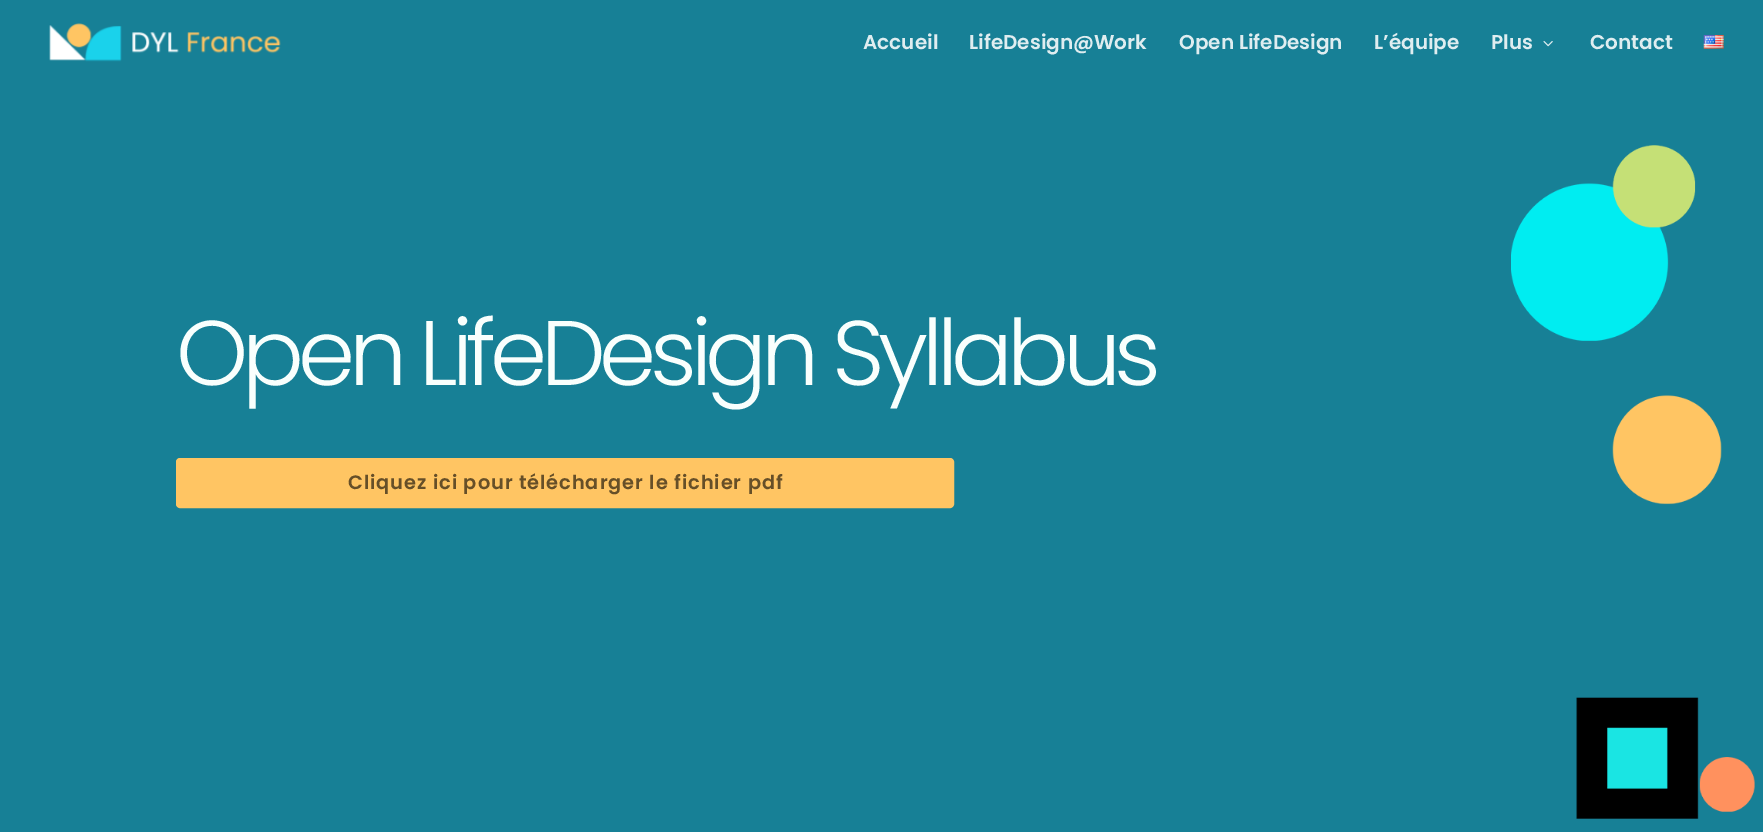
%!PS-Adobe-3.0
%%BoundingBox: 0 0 1763 832
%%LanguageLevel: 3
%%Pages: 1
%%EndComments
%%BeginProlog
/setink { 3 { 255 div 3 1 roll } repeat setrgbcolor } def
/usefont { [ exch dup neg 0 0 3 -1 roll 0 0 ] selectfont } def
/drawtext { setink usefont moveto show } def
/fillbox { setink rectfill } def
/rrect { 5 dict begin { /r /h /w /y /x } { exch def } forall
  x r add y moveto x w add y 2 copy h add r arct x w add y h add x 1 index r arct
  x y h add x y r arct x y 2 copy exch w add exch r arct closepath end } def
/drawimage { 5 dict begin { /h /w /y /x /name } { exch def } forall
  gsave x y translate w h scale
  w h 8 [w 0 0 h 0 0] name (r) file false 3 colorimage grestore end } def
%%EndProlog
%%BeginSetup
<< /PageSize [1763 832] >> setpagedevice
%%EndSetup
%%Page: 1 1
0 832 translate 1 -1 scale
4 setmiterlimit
0 0 1763 832 23 128 150 fillbox
(assets/img1.rgb) 49 23 232 39 drawimage
(Accueil) 863 49 /Poppins-SemiBold 20 223 237 240 drawtext
(LifeDesign@Work) 969 49 /Poppins-SemiBold 20 223 237 240 drawtext
(Open LifeDesign) 1179 49 /Poppins-SemiBold 20 223 237 240 drawtext
(L’équipe) 1374 49 /Poppins-SemiBold 20 223 237 240 drawtext
(Plus) 1491 49 /Poppins-SemiBold 20 223 237 240 drawtext
(assets/img2.rgb) 1543 41 10 6 drawimage
(Contact) 1590 49 /Poppins-SemiBold 20 223 237 240 drawtext
(assets/img3.rgb) 1703 35 21 14 drawimage
(assets/img4.rgb) 1511 145 244 674 drawimage
/Poppins-Light 91.75 usefont
249 255 253 setink
176 385 moveto -6.25 0 (Open LifeDesign Syllabus) ashow
255 197 99 setink
177.5 459.5 775 47 2.5 rrect gsave fill grestore
3 setlinewidth
stroke
/Poppins-SemiBold 19.4 usefont
102 79 40 setink
348 489 moveto 0.9 0 (Cliquez ici pour télécharger le fichier pdf) ashow
showpage
%%EOF
